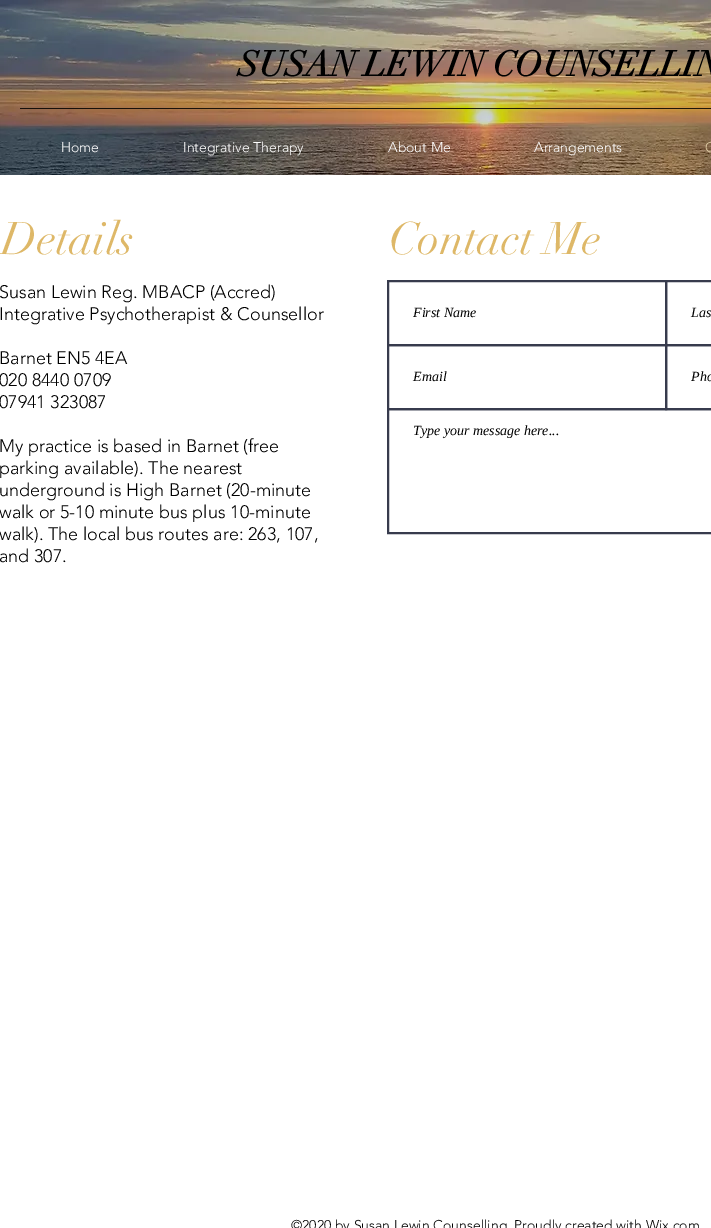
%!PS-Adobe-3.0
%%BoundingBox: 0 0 711 1228
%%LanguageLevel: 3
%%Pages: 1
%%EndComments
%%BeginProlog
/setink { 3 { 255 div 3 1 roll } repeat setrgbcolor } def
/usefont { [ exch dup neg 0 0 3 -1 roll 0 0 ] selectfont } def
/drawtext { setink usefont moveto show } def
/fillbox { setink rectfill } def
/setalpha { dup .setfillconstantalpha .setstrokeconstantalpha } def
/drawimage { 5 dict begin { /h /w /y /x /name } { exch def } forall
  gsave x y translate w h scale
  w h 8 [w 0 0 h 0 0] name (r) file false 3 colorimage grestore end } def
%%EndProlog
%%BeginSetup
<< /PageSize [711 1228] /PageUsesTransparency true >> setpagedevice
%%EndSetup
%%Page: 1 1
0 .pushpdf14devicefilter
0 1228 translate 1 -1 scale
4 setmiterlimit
0 0 711 1228 255 255 255 fillbox
(assets/img1.rgb) 0 0 711 175 drawimage
(SUSAN LEWIN COUNSELLIN) 238 76 /didot-Bold 35 0 0 0 drawtext
0.85 setalpha
20 108 691 1 0 0 0 fillbox
1 setalpha
(Home) 61 152 /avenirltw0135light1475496-Light 14 255 255 255 drawtext
(Integrative Therapy) 183 152 /avenirltw0135light1475496-Light 14 255 255 255 drawtext
(About Me) 388 152 /avenirltw0135light1475496-Light 14 255 255 255 drawtext
(Arrangements) 534 152 /avenirltw0135light1475496-Light 14 255 255 255 drawtext
(C) 705 152 /avenirltw0135light1475496-Light 14 227 208 168 drawtext
(Details) 1 254 /didot-Regular 45 222 184 104 drawtext
(Contact Me) 389 254 /didot-Regular 45 222 184 104 drawtext
55 59 77 setink
2 setlinewidth
388 281 278 64 rectstroke
(First Name) 413 317 /LiberationSerif-Italic 14 0 0 0 drawtext
55 59 77 setink
666 281 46 64 rectstroke
(Las) 691 317 /LiberationSerif-Italic 14 0 0 0 drawtext
55 59 77 setink
388 345 278 64 rectstroke
(Email) 413 381 /LiberationSerif-Italic 14 0 0 0 drawtext
55 59 77 setink
666 345 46 64 rectstroke
(Pho) 691 381 /LiberationSerif-Italic 14 0 0 0 drawtext
55 59 77 setink
388 409 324 124 rectstroke
(Type your message here...) 413 435 /LiberationSerif-Italic 14 0 0 0 drawtext
(Susan Lewin Reg. MBACP \(Accred\)) -1 298 /avenirltw0135light1475496-Light 18 0 0 0 drawtext
(Integrative Psychotherapist & Counsellor) -1 320 /avenirltw0135light1475496-Light 18 0 0 0 drawtext
(Barnet EN5 4EA) -1 364 /avenirltw0135light1475496-Light 18 0 0 0 drawtext
(020 8440 0709) -1 386 /avenirltw0135light1475496-Light 18 0 0 0 drawtext
(07941 323087) -1 408 /avenirltw0135light1475496-Light 18 0 0 0 drawtext
(My practice is based in Barnet \(free) -1 452 /avenirltw0135light1475496-Light 18 0 0 0 drawtext
(parking available\). The nearest) -1 474 /avenirltw0135light1475496-Light 18 0 0 0 drawtext
(underground is High Barnet \(20-minute) -1 496 /avenirltw0135light1475496-Light 18 0 0 0 drawtext
(walk or 5-10 minute bus plus 10-minute) -1 518 /avenirltw0135light1475496-Light 18 0 0 0 drawtext
(walk\). The local bus routes are: 263, 107,) -1 540 /avenirltw0135light1475496-Light 18 0 0 0 drawtext
(and 307.) -1 562 /avenirltw0135light1475496-Light 18 0 0 0 drawtext
(©2020 by Susan Lewin Counselling. Proudly created with Wix.com) 291 1230 /avenirltw0135light1475496-Light 14 0 0 0 drawtext
.poppdf14devicefilter showpage
%%EOF
